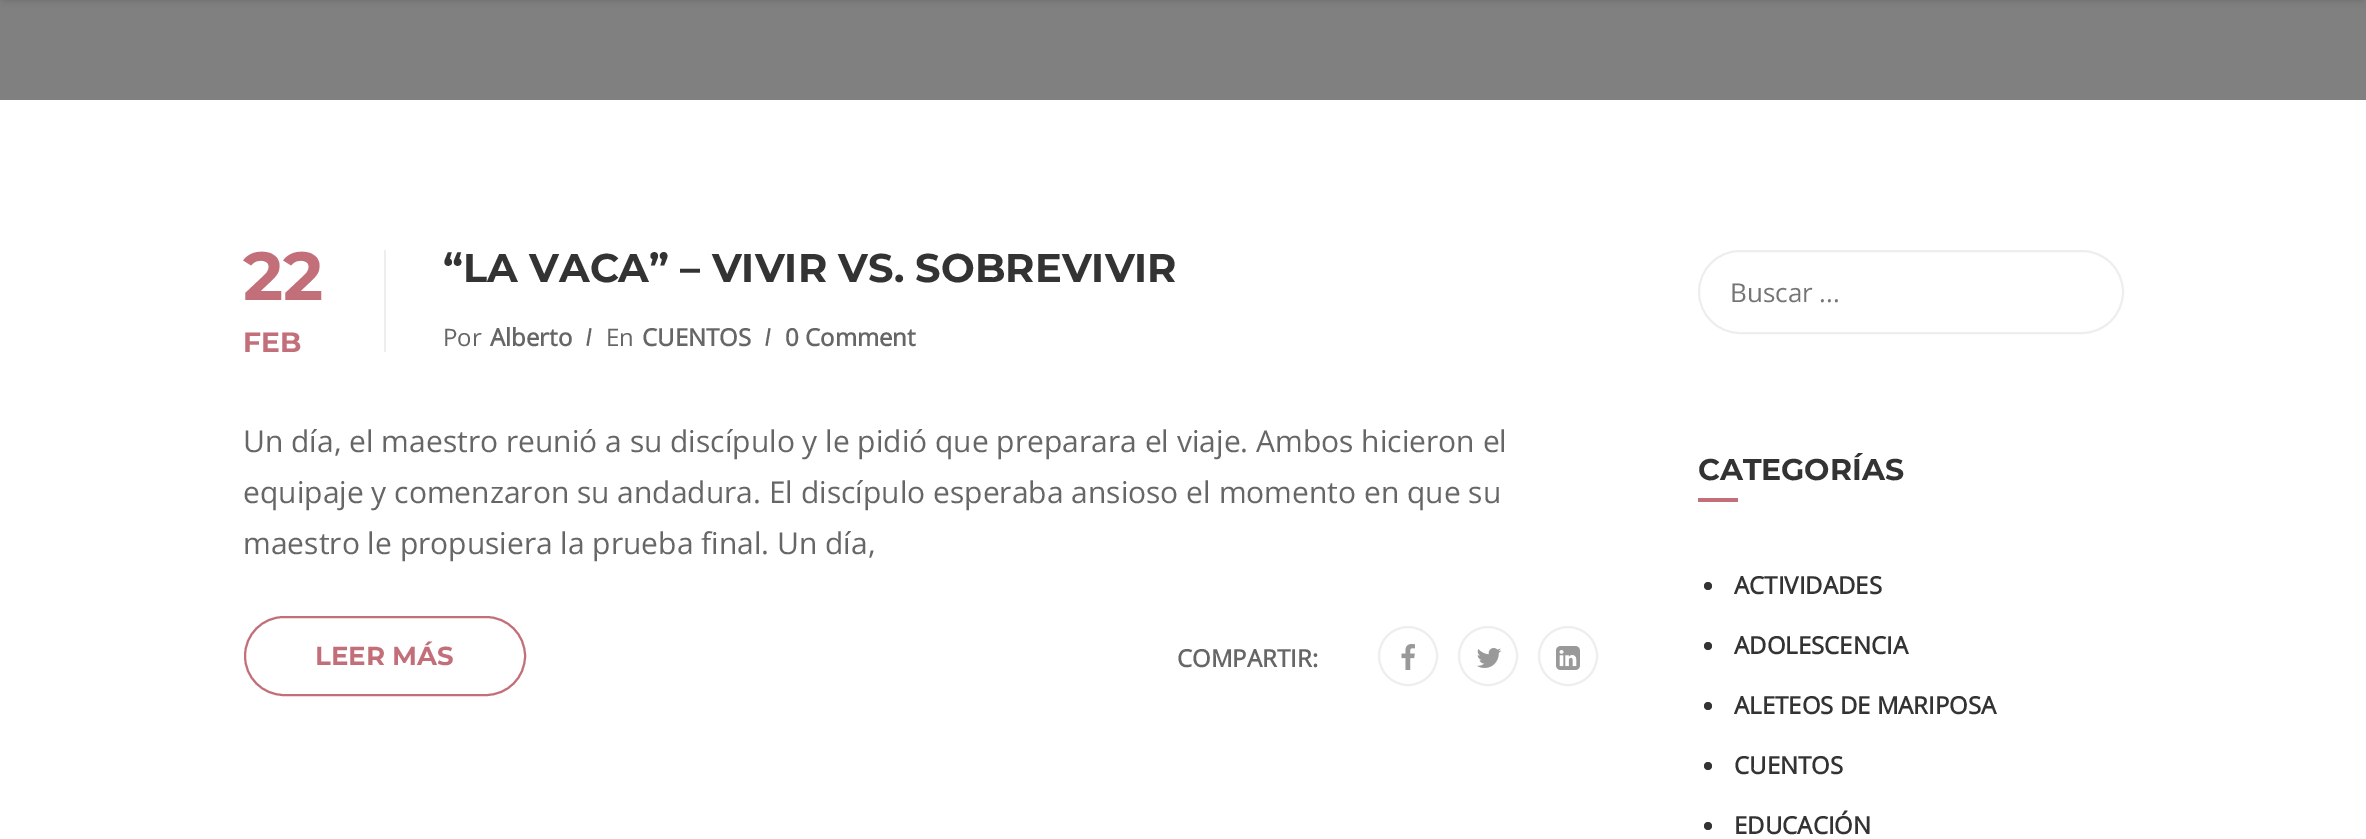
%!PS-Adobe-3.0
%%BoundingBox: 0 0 2366 839
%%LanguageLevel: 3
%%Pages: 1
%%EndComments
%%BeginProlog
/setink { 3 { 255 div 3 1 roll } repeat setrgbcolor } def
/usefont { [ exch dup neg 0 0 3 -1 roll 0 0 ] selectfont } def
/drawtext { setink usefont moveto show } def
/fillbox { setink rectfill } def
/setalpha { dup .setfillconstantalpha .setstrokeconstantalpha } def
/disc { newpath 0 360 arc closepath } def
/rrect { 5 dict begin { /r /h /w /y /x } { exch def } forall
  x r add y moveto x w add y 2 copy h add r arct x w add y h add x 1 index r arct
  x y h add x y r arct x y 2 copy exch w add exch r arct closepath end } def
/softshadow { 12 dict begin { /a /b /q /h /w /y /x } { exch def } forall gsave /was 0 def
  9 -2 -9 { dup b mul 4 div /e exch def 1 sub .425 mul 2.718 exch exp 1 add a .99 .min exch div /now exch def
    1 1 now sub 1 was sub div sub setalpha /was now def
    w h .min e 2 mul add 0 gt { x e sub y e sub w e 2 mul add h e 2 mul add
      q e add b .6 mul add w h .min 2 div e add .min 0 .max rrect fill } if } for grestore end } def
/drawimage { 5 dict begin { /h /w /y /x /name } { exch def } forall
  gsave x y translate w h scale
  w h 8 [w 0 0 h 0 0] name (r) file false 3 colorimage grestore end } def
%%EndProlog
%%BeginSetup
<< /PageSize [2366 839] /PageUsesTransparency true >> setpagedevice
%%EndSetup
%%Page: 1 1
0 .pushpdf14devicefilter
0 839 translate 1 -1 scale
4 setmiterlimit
0 0 2366 839 255 255 255 fillbox
0 0 2366 100 128 128 128 fillbox
42 42 42 setink
4 -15 2358 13 0 5 0.4 softshadow
384 250 2 102 238 238 238 fillbox
(22) 243 300 /Montserrat-Bold 68 194 111 122 drawtext
(FEB) 243 352 /Montserrat-Bold 28 194 111 122 drawtext
(“LA VACA” – VIVIR VS. SOBREVIVIR) 443 282 /Montserrat-Bold 40 51 51 51 drawtext
(Por) 443 346 /OpenSans-Regular 24 102 102 102 drawtext
(Alberto) 490 346 /OpenSans-Bold 24 102 102 102 drawtext
589.5 328 moveto 591.5 328.5 lineto 588.5 346 lineto 586.5 345.5 lineto closepath fill
(En) 606 346 /OpenSans-Regular 24 102 102 102 drawtext
(CUENTOS) 642 346 /OpenSans-Bold 24 102 102 102 drawtext
768.5 328 moveto 770.5 328.5 lineto 767.5 346 lineto 765.5 345.5 lineto closepath fill
(0 Comment) 785 346 /OpenSans-Bold 24 102 102 102 drawtext
(Un día, el maestro reunió a su discípulo y le pidió que preparara el viaje. Ambos hicieron el) 243 452 /OpenSans-Regular 30 102 102 102 drawtext
(equipaje y comenzaron su andadura. El discípulo esperaba ansioso el momento en que su) 243 503 /OpenSans-Regular 30 102 102 102 drawtext
(maestro le propusiera la prueba final. Un día,) 243 554 /OpenSans-Regular 30 102 102 102 drawtext
194 111 122 setink
2 setlinewidth
245 617 280 78 39 rrect stroke
(LEER MÁS) 315 665 /Montserrat-Bold 26 194 111 122 drawtext
(COMPARTIR:) 1177 667 /OpenSans-Bold 24 102 102 102 drawtext
238 238 238 setink
1408 656 29 disc stroke
(assets/img1.rgb) 1401 644 14 26 drawimage
1488 656 29 disc stroke
(assets/img2.rgb) 1477 648 25 20 drawimage
1568 656 29 disc stroke
(assets/img3.rgb) 1556 646 24 24 drawimage
1699 251 424 82 41 rrect stroke
(Buscar ...) 1730 302 /OpenSans-Regular 26 117 117 117 drawtext
(CATEGORÍAS) 1698 480 /Montserrat-Bold 30 51 51 51 drawtext
1698 498 40 4 194 111 122 fillbox
51 51 51 setink
1708 586 4 disc fill
(ACTIVIDADES) 1734 594 /OpenSans-Bold 24 51 51 51 drawtext
1708 646 4 disc fill
(ADOLESCENCIA) 1734 654 /OpenSans-Bold 24 51 51 51 drawtext
1708 706 4 disc fill
(ALETEOS DE MARIPOSA) 1734 714 /OpenSans-Bold 24 51 51 51 drawtext
1708 766 4 disc fill
(CUENTOS) 1734 774 /OpenSans-Bold 24 51 51 51 drawtext
1708 826 4 disc fill
(EDUCACIÓN) 1734 834 /OpenSans-Bold 24 51 51 51 drawtext
.poppdf14devicefilter showpage
%%EOF
